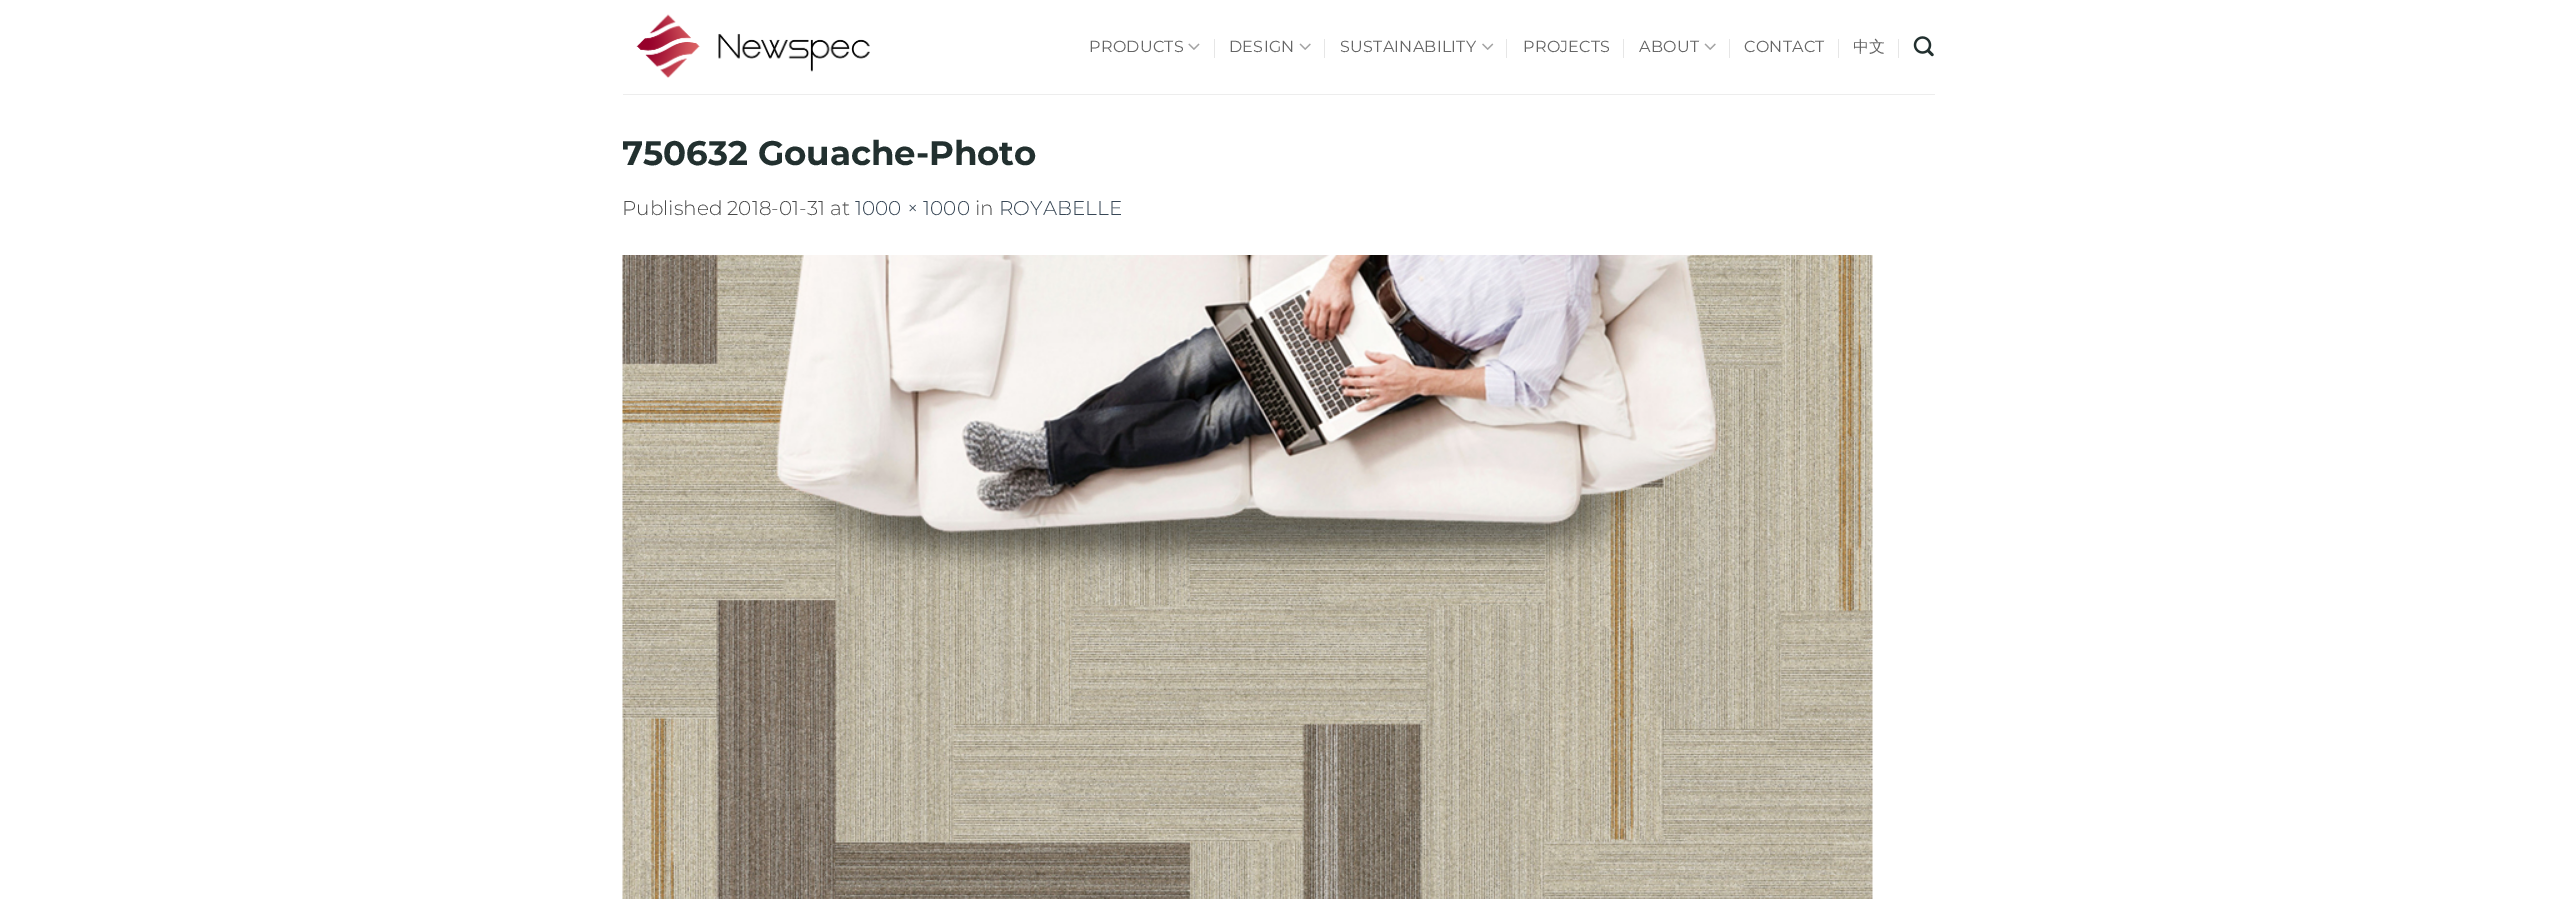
%!PS-Adobe-3.0
%%BoundingBox: 0 0 2556 899
%%LanguageLevel: 3
%%Pages: 1
%%EndComments
%%BeginProlog
/setink { 3 { 255 div 3 1 roll } repeat setrgbcolor } def
/usefont { [ exch dup neg 0 0 3 -1 roll 0 0 ] selectfont } def
/drawtext { setink usefont moveto show } def
/fillbox { setink rectfill } def
/drawimage { 5 dict begin { /h /w /y /x /name } { exch def } forall
  gsave x y translate w h scale
  w h 8 [w 0 0 h 0 0] name (r) file false 3 colorimage grestore end } def
%%EndProlog
%%BeginSetup
<< /PageSize [2556 899] >> setpagedevice
%%EndSetup
%%Page: 1 1
0 899 translate 1 -1 scale
4 setmiterlimit
0 0 2556 899 255 255 255 fillbox
(assets/img1.rgb) 636 14 234 64 drawimage
/Montserrat-Regular 16 usefont
101 101 101 setink
1089 52 moveto 0.25 0 (PRODUCTS) ashow
(assets/img2.rgb) 1188 43 12 7 drawimage
1214 39 1 19 230 230 230 fillbox
101 101 101 setink
1229 52 moveto 0.25 0 (DESIGN) ashow
(assets/img3.rgb) 1299 43 12 7 drawimage
1324 39 1 19 230 230 230 fillbox
101 101 101 setink
1340 52 moveto 0.25 0 (SUSTAINABILITY) ashow
(assets/img4.rgb) 1482 43 12 7 drawimage
1506 39 1 19 230 230 230 fillbox
101 101 101 setink
1523 52 moveto 0.25 0 (PROJECTS) ashow
1623 39 1 19 230 230 230 fillbox
101 101 101 setink
1639 52 moveto 0.25 0 (ABOUT) ashow
(assets/img3.rgb) 1704 43 12 7 drawimage
1729 39 1 19 230 230 230 fillbox
101 101 101 setink
1744 52 moveto 0.25 0 (CONTACT) ashow
1838 39 1 19 230 230 230 fillbox
/WenQuanYiZenHei-Medium 16 usefont
101 101 101 setink
1853 52 moveto 0.25 0 (中文) ashow
1898 39 1 19 230 230 230 fillbox
(assets/img5.rgb) 1913 36 21 21 drawimage
623 94 1312 1 237 237 237 fillbox
(750632 Gouache-Photo) 622 165 /Montserrat-Thin 34 34 48 47 drawtext
(Published 2018-01-31 at) 622 215 /Montserrat-Light 20 74 74 74 drawtext
(1000 × 1000) 855 215 /Montserrat-Light 20 56 71 86 drawtext
(in) 975 215 /Montserrat-Light 20 74 74 74 drawtext
(ROYABELLE) 999 215 /Montserrat-Light 20 56 71 86 drawtext
(assets/img6.rgb) 622 255 1251 644 drawimage
showpage
%%EOF
